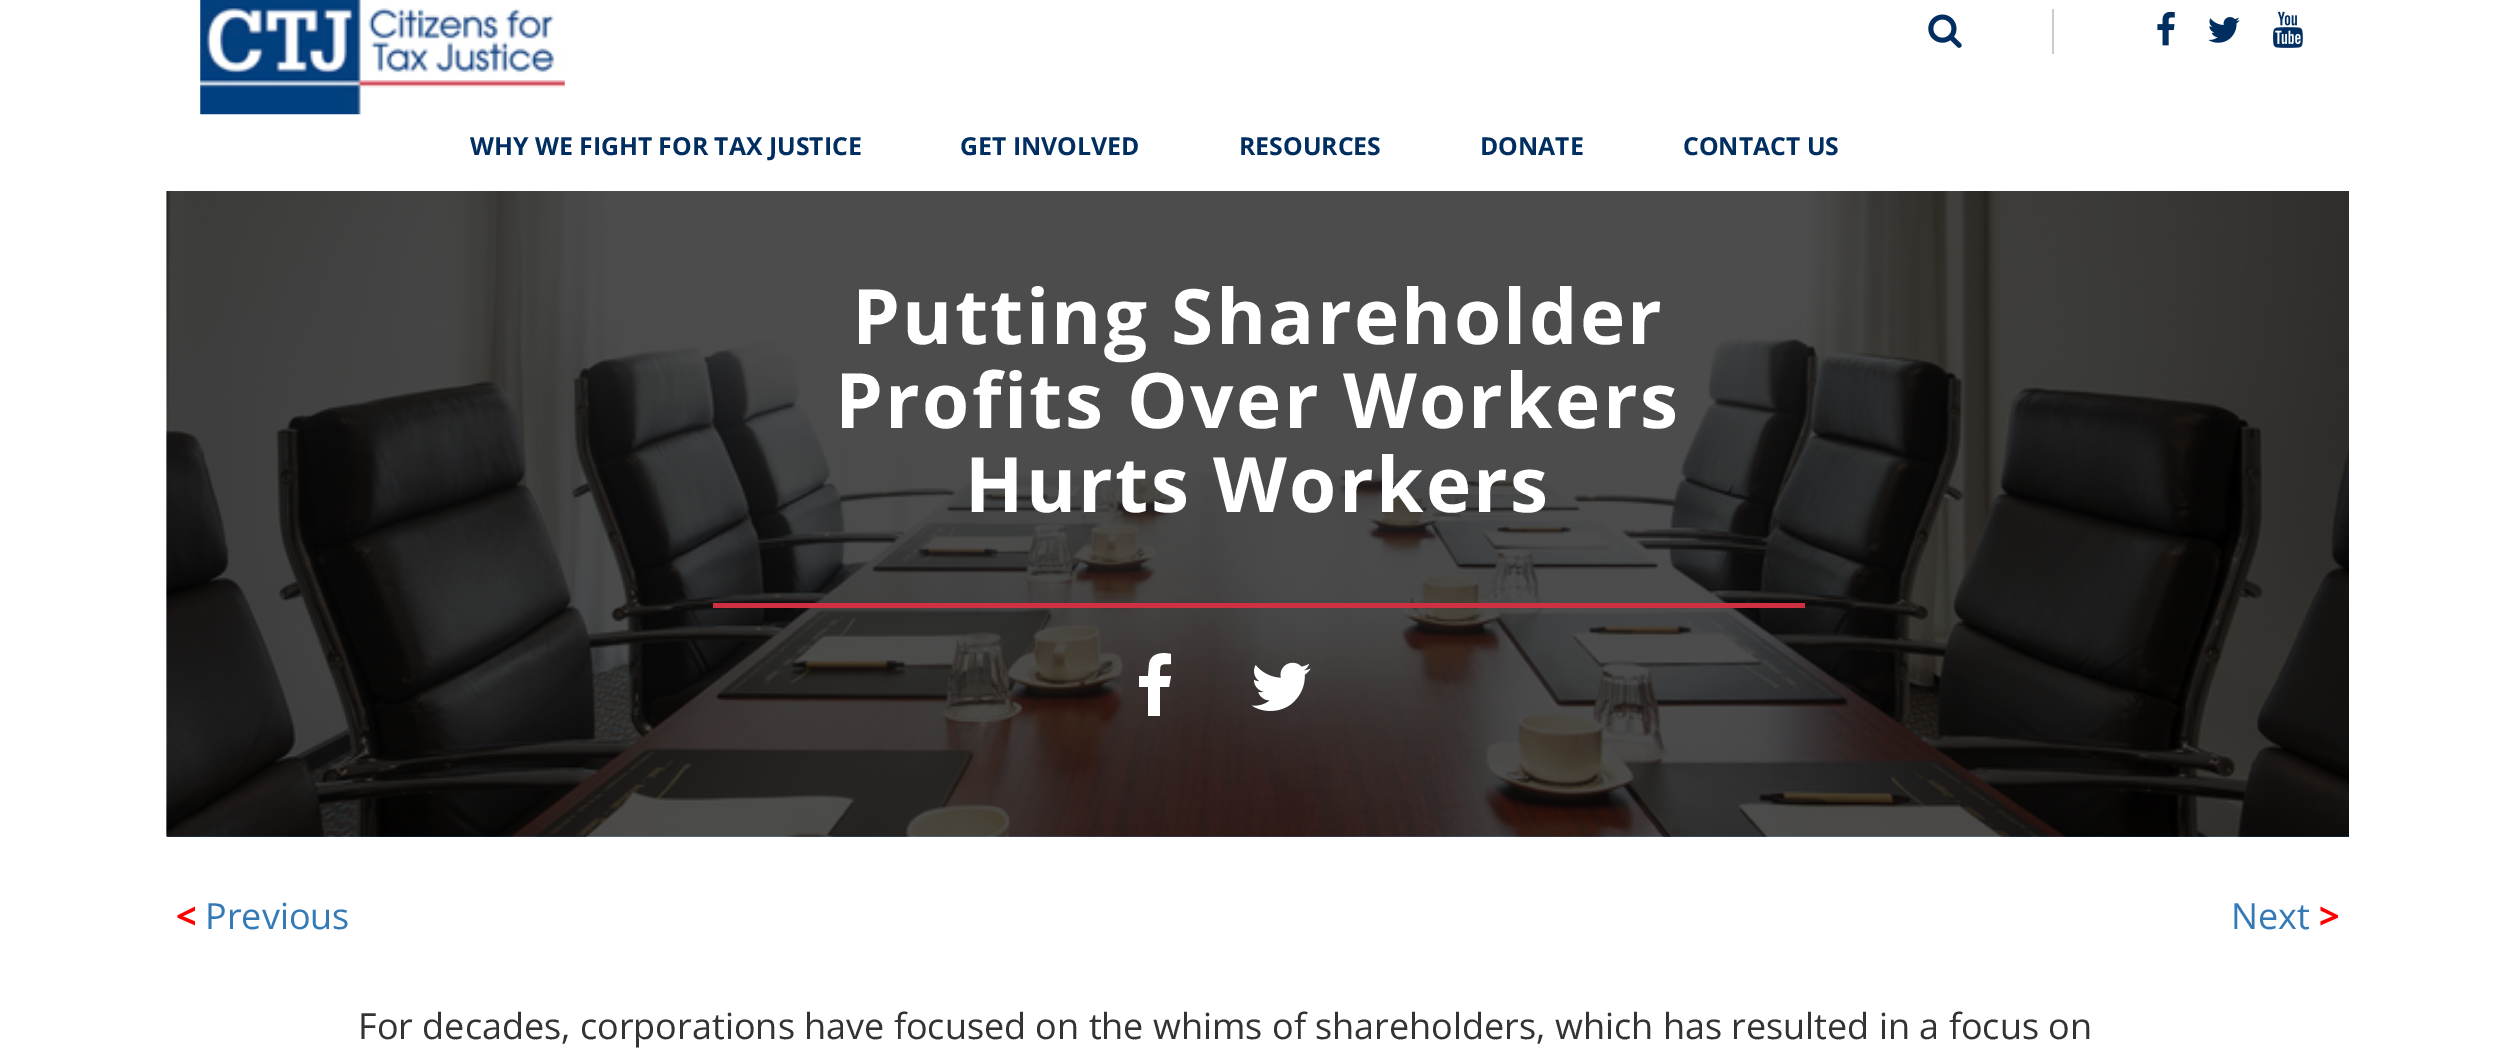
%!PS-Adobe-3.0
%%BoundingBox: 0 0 2514 1063
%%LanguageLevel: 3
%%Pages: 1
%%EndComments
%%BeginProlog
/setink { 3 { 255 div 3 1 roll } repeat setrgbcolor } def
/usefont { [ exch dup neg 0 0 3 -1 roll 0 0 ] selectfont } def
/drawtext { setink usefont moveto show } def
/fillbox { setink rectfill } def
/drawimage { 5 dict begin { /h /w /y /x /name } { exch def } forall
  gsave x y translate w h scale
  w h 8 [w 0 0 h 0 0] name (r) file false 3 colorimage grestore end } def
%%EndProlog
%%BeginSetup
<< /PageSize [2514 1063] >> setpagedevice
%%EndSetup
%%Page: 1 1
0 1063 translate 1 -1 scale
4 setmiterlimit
0 0 2514 1063 255 255 255 fillbox
(assets/img1.rgb) 200 0 365 115 drawimage
(assets/img2.rgb) 1928 14 34 34 drawimage
2052 9 2 45 204 204 204 fillbox
(assets/img3.rgb) 2157 11 18 35 drawimage
(assets/img4.rgb) 2208 17 32 26 drawimage
(assets/img5.rgb) 2273 11 30 37 drawimage
(WHY WE FIGHT FOR TAX JUSTICE) 470 155 /OpenSans-Bold 24.75 0 46 96 drawtext
(GET INVOLVED) 960 155 /OpenSans-Bold 24.75 0 46 96 drawtext
(RESOURCES) 1239 155 /OpenSans-Bold 24.75 0 46 96 drawtext
(DONATE) 1480 155 /OpenSans-Bold 24.75 0 46 96 drawtext
(CONTACT US) 1683 155 /OpenSans-Bold 24.75 0 46 96 drawtext
167 836 2182 1 0 64 126 fillbox
(assets/img6.rgb) 166 191 2183 646 drawimage
/OpenSans-Bold 76.5 usefont
255 255 255 setink
852 344 moveto 2.25 0 (Putting Shareholder) ashow
835 428 moveto 2.25 0 (Profits Over Workers) ashow
965 512 moveto 2.25 0 (Hurts Workers) ashow
713 603 1092 5 207 48 66 fillbox
255 255 255 setink
1171 654 moveto 1171 664 lineto 1159 664 1160 664 1160 676 curveto 1171 676 lineto 1169 687 lineto 1160 687 lineto 1160 716 lineto 1148 716 lineto 1148 687 lineto 1139 687 lineto 1139 676 lineto 1148 676 lineto 1149 665 lineto 1150 653 1162 652 1171 654 curveto closepath fill
(assets/img7.rgb) 1251 662 60 49 drawimage
(<) 176 929 /OpenSans-Bold 36 255 0 0 drawtext
(Previous) 205 929 /OpenSans-Regular 36 51 122 183 drawtext
(Next) 2231 929 /OpenSans-Regular 36 51 122 183 drawtext
(>) 2319 929 /OpenSans-Bold 36 255 0 0 drawtext
(For decades, corporations have focused on the whims of shareholders, which has resulted in a focus on) 358 1039 /OpenSans-Regular 36 51 51 51 drawtext
showpage
%%EOF
